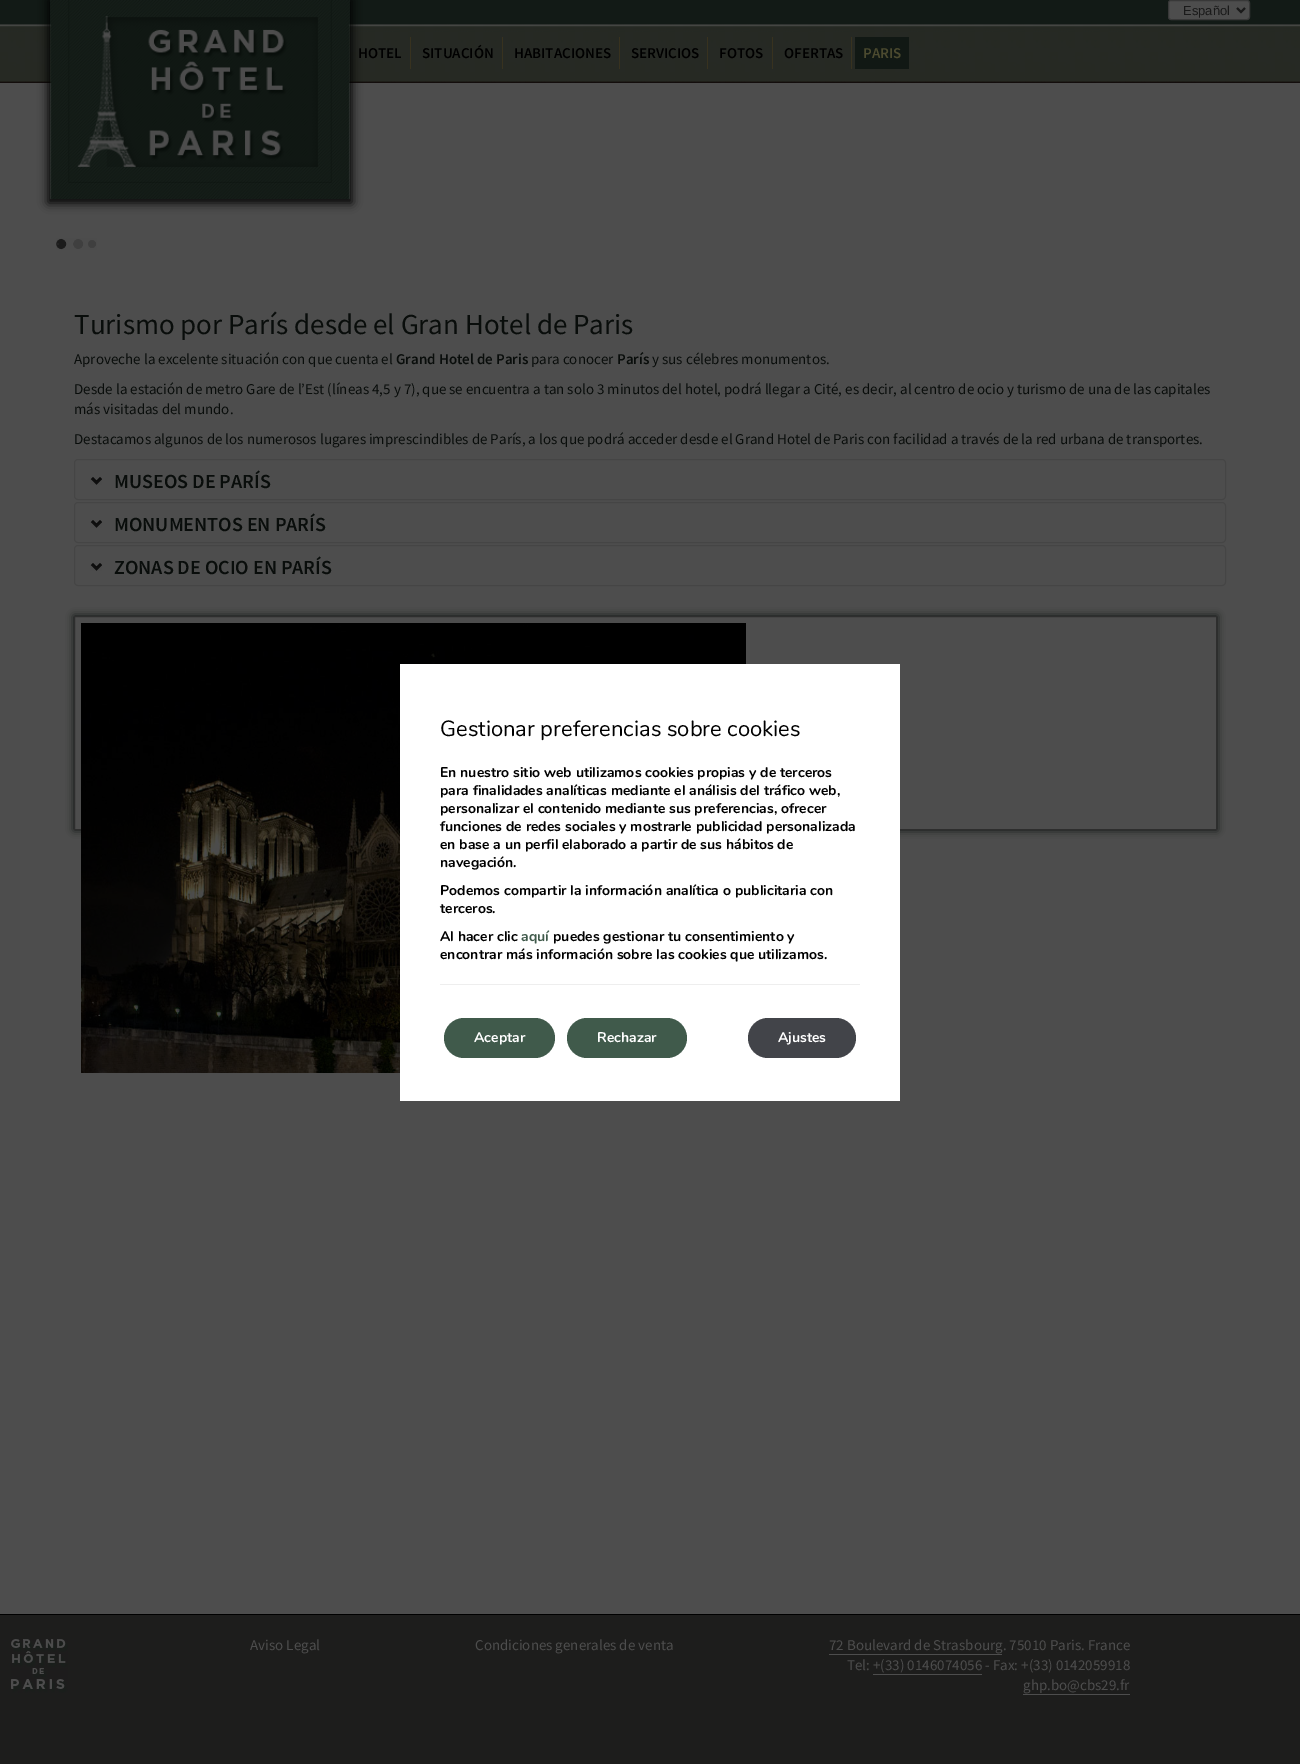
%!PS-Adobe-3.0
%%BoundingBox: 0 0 1300 1764
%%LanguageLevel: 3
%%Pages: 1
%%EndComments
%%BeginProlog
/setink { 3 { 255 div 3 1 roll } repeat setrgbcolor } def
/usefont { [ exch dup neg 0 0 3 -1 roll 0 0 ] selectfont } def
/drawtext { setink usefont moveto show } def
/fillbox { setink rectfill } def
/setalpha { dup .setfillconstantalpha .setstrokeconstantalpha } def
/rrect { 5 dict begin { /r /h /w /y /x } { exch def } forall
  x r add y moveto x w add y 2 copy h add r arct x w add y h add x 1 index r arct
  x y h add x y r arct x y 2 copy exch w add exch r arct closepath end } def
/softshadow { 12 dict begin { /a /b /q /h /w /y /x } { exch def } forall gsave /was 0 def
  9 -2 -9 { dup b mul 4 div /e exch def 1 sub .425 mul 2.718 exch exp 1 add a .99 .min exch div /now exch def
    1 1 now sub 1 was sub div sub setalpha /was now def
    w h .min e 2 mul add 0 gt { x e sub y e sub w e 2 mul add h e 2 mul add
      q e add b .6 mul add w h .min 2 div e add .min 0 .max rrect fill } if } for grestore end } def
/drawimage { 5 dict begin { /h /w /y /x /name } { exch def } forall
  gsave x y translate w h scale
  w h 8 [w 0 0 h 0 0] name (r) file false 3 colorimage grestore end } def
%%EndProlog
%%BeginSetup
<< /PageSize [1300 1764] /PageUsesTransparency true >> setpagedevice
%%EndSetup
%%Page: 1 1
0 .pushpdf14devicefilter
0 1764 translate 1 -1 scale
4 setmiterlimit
0 0 1300 1764 77 77 77 fillbox
(assets/img1.rgb) 0 0 1300 83 drawimage
0 0 0 setink
48 0 304 203 0 5 1 softshadow
(assets/img2.rgb) 50 0 300 199 drawimage
77 77 77 setink
1168.5 0.5 81 19 2.5 rrect gsave fill grestore
56 56 56 setink
stroke
26 26 26 setink
2 setlinewidth
1237 8 moveto 1241 12 lineto 1245 8 lineto stroke
(Español) 1183 15 /LiberationSans-Regular 13 26 26 26 drawtext
410 37 1 32 56 50 31 fillbox
(HOTEL) 358 58 /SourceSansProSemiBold-SemiBold 15 0 0 0 drawtext
502 37 1 32 56 50 31 fillbox
(SITUACIÓN) 422 58 /SourceSansProSemiBold-SemiBold 15 0 0 0 drawtext
619 37 1 32 56 50 31 fillbox
(HABITACIONES) 514 58 /SourceSansProSemiBold-SemiBold 15 0 0 0 drawtext
707 37 1 32 56 50 31 fillbox
(SERVICIOS) 631 58 /SourceSansProSemiBold-SemiBold 15 0 0 0 drawtext
772 37 1 32 56 50 31 fillbox
(FOTOS) 719 58 /SourceSansProSemiBold-SemiBold 15 0 0 0 drawtext
851 37 1 32 56 50 31 fillbox
(OFERTAS) 784 58 /SourceSansProSemiBold-SemiBold 15 0 0 0 drawtext
855 37 54 32 17 24 20 fillbox
(PARIS) 863 58 /SourceSansProSemiBold-SemiBold 15 76 74 47 drawtext
(assets/img3.rgb) 56 238 41 12 drawimage
(Turismo por París desde el Gran Hotel de Paris) 74 334 /SourceSansPro-Regular 29 9 13 11 drawtext
(Aproveche la excelente situación con que cuenta el) 74 364 /SourceSansPro-Regular 15 9 13 11 drawtext
(Grand Hotel de Paris) 396 364 /SourceSansProSemiBold-SemiBold 15 9 13 11 drawtext
(para conocer) 531 364 /SourceSansPro-Regular 15 9 13 11 drawtext
(París) 617 364 /SourceSansProSemiBold-SemiBold 15 9 13 11 drawtext
(y sus célebres monumentos.) 652 364 /SourceSansPro-Regular 15 9 13 11 drawtext
(Desde la estación de metro Gare de l’Est \(líneas 4,5 y 7\), que se encuentra a tan solo 3 minutos del hotel, podrá llegar a Cité, es decir, al centro de ocio y turismo de una de las capitales) 74 394 /SourceSansPro-Regular 15 9 13 11 drawtext
(más visitadas del mundo.) 74 414 /SourceSansPro-Regular 15 9 13 11 drawtext
(Destacamos algunos de los numerosos lugares imprescindibles de París, a los que podrá acceder desde el Grand Hotel de Paris con facilidad a través de la red urbana de transportes.) 74 444 /SourceSansPro-Regular 15 9 13 11 drawtext
69 69 69 setink
1 setlinewidth
74.5 459.5 1151 40 3.5 rrect stroke
(assets/img4.rgb) 90 477 12 8 drawimage
(MUSEOS DE PARÍS) 114 488 /SourceSansProSemiBold-SemiBold 20 9 13 11 drawtext
69 69 69 setink
74.5 502.5 1151 40 3.5 rrect stroke
(assets/img4.rgb) 90 520 12 8 drawimage
(MONUMENTOS EN PARÍS) 114 531 /SourceSansProSemiBold-SemiBold 20 9 13 11 drawtext
69 69 69 setink
74.5 545.5 1151 40 3.5 rrect stroke
(assets/img4.rgb) 90 563 12 8 drawimage
(ZONAS DE OCIO EN PARÍS) 114 574 /SourceSansProSemiBold-SemiBold 20 9 13 11 drawtext
gsave
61 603 moveto 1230 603 lineto 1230 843 lineto 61 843 lineto closepath 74 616 moveto 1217 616 lineto 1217 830 lineto 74 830 lineto closepath eoclip newpath
9 14 11 setink
74 616 1143 214 0 4 1 softshadow
grestore
46 46 46 setink
74.5 616.5 1142 213 rectstroke
(assets/img5.rgb) 81 623 665 450 drawimage
0 1615 1300 149 29 29 28 fillbox
0 1614 1300 1 0 0 0 fillbox
(assets/img6.rgb) 11 1639 57 54 drawimage
(Aviso Legal) 250 1650 /SourceSansPro-Regular 15 77 77 77 drawtext
(Condiciones generales de venta) 475 1650 /SourceSansPro-Regular 15 77 77 77 drawtext
(72 Boulevard de Strasbourg. 75010 Paris. France) 829 1650 /SourceSansPro-Regular 15 77 77 77 drawtext
829 1654 173 1 77 77 77 fillbox
(Tel: +\(33\) 0146074056 - Fax: +\(33\) 0142059918) 847 1670 /SourceSansPro-Regular 15 77 77 77 drawtext
873 1674 109 1 77 77 77 fillbox
(ghp.bo@cbs29.fr) 1023 1690 /SourceSansPro-Regular 15 77 77 77 drawtext
1023 1694 107 1 77 77 77 fillbox
400 664 500 437 255 255 255 fillbox
(Gestionar preferencias sobre cookies) 440 736 /Nunito-Regular 22 0 0 0 drawtext
(En nuestro sitio web utilizamos cookies propias y de terceros) 440 777 /Nunito-Bold 14 0 0 0 drawtext
(para finalidades analíticas mediante el análisis del tráfico web,) 440 795 /Nunito-Bold 14 0 0 0 drawtext
(personalizar el contenido mediante sus preferencias, ofrecer) 440 813 /Nunito-Bold 14 0 0 0 drawtext
(funciones de redes sociales y mostrarle publicidad personalizada) 440 831 /Nunito-Bold 14 0 0 0 drawtext
(en base a un perfil elaborado a partir de sus hábitos de) 440 849 /Nunito-Bold 14 0 0 0 drawtext
(navegación.) 440 867 /Nunito-Bold 14 0 0 0 drawtext
(Podemos compartir la información analítica o publicitaria con) 440 895 /Nunito-Bold 14 0 0 0 drawtext
(terceros.) 440 913 /Nunito-Bold 14 0 0 0 drawtext
(Al hacer clic) 440 941 /Nunito-Bold 14 0 0 0 drawtext
(aquí) 521 941 /Nunito-Bold 14 64 90 75 drawtext
(puedes gestionar tu consentimiento y) 553 941 /Nunito-Bold 14 0 0 0 drawtext
(encontrar más información sobre las cookies que utilizamos.) 440 959 /Nunito-Bold 14 0 0 0 drawtext
440 984 420 1 238 238 238 fillbox
64 90 75 setink
444 1018 111 40 20 rrect fill
(Aceptar) 474 1042 /Nunito-Bold 14 255 255 255 drawtext
64 90 75 setink
567 1018 120 40 20 rrect fill
(Rechazar) 597 1042 /Nunito-Bold 14 255 255 255 drawtext
66 68 73 setink
748 1018 108 40 20 rrect fill
(Ajustes) 778 1042 /Nunito-Bold 14 255 255 255 drawtext
.poppdf14devicefilter showpage
%%EOF
